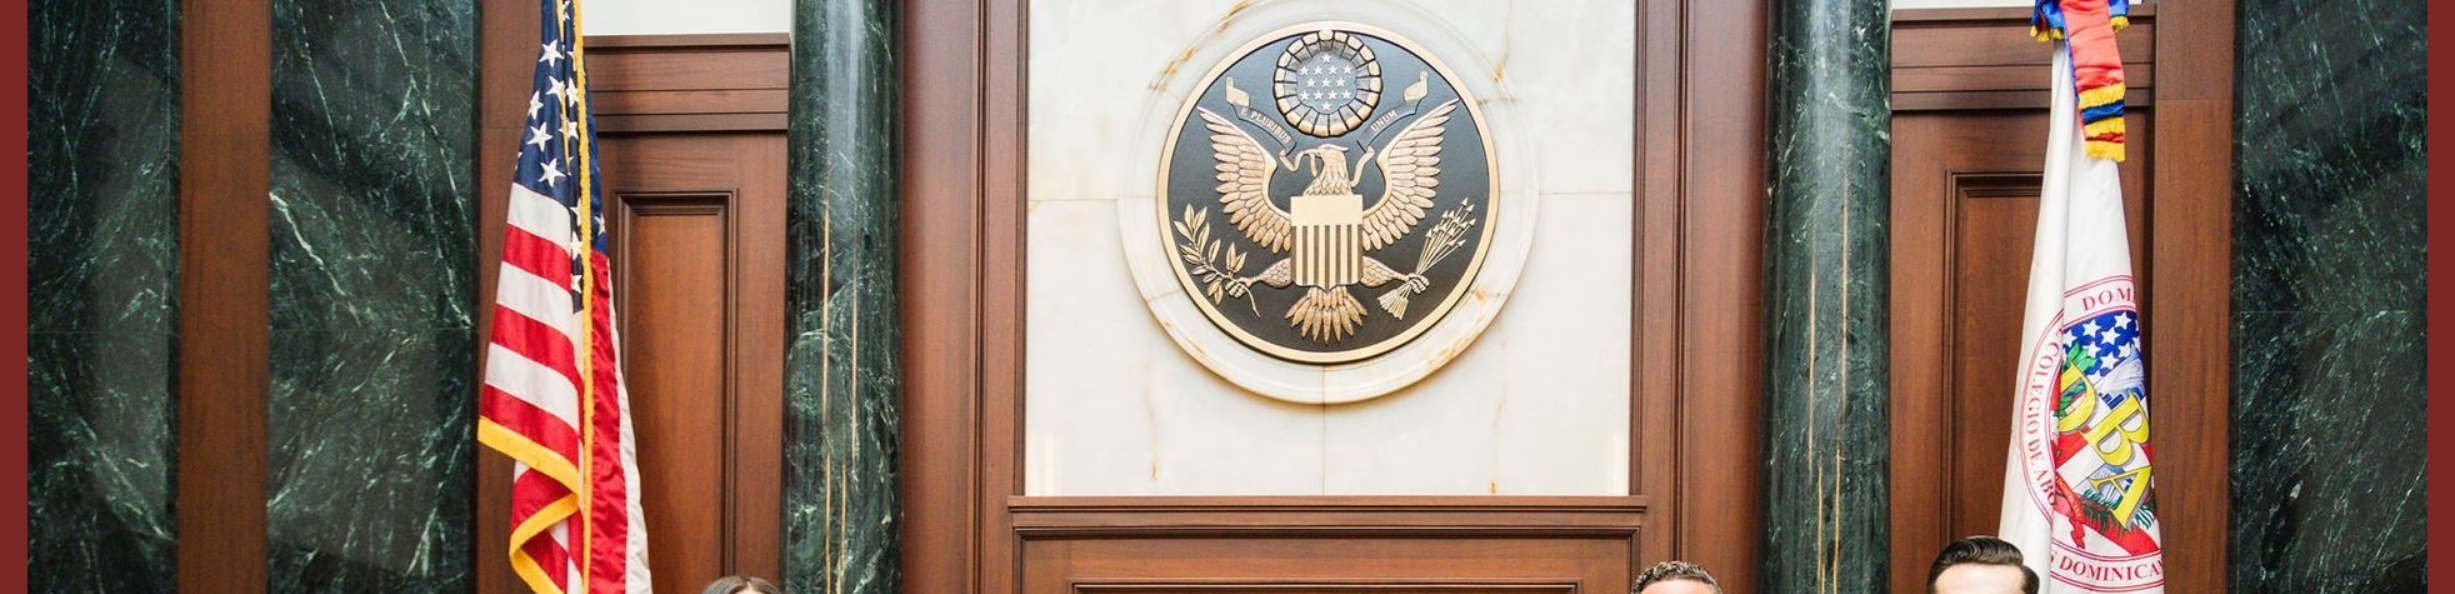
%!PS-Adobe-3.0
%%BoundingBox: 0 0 2455 594
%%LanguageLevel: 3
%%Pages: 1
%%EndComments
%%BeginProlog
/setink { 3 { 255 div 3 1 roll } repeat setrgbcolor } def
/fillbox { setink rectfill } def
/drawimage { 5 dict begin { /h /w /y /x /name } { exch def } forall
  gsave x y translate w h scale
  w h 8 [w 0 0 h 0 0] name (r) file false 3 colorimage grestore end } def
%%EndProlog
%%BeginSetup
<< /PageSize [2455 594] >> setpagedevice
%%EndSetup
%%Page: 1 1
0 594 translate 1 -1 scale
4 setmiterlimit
0 0 2455 594 124 37 38 fillbox
(assets/img1.rgb) 27 0 2401 594 drawimage
showpage
%%EOF
